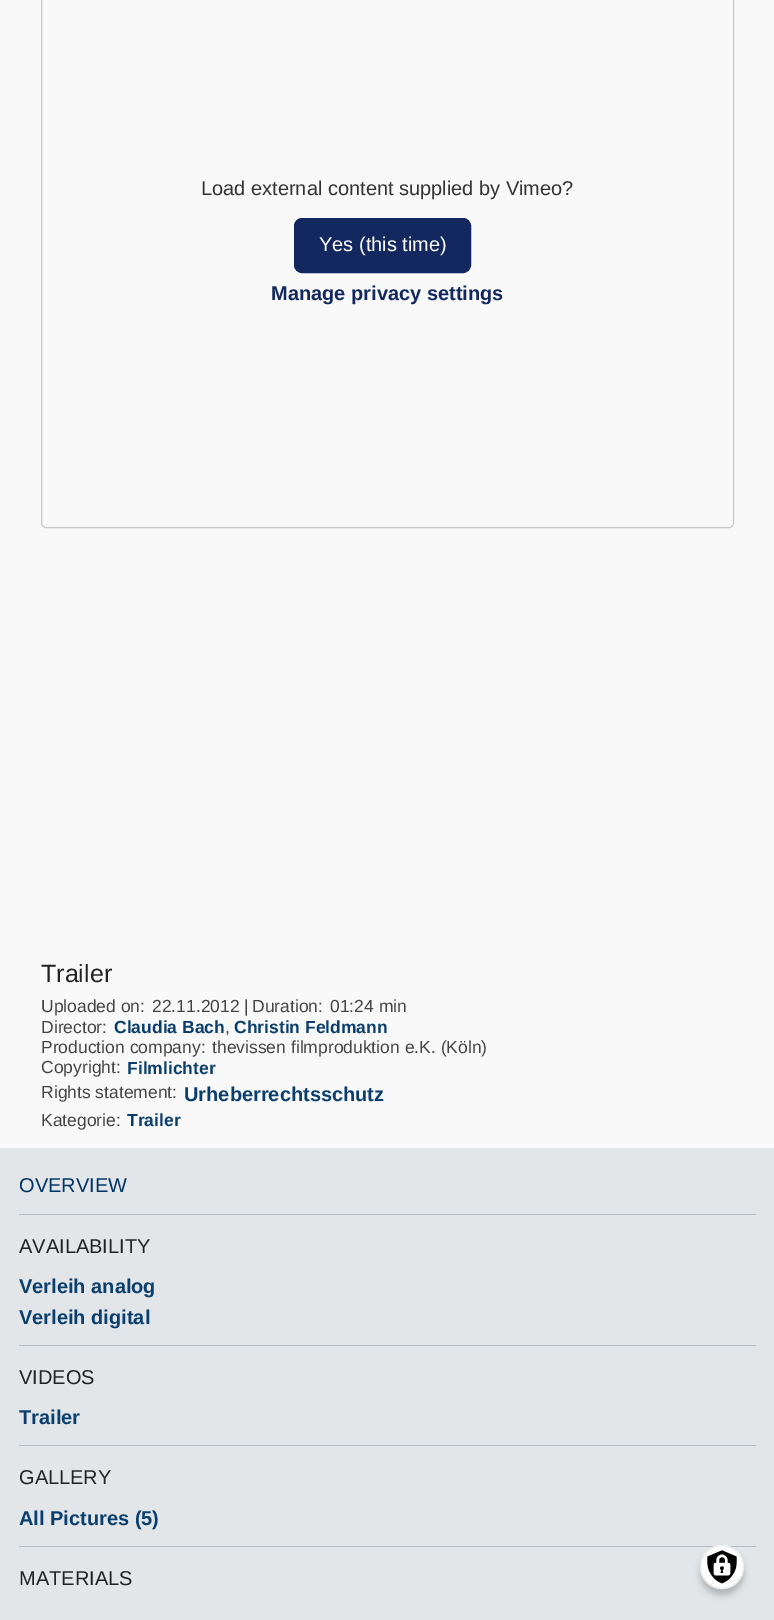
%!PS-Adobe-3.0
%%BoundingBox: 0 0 774 1620
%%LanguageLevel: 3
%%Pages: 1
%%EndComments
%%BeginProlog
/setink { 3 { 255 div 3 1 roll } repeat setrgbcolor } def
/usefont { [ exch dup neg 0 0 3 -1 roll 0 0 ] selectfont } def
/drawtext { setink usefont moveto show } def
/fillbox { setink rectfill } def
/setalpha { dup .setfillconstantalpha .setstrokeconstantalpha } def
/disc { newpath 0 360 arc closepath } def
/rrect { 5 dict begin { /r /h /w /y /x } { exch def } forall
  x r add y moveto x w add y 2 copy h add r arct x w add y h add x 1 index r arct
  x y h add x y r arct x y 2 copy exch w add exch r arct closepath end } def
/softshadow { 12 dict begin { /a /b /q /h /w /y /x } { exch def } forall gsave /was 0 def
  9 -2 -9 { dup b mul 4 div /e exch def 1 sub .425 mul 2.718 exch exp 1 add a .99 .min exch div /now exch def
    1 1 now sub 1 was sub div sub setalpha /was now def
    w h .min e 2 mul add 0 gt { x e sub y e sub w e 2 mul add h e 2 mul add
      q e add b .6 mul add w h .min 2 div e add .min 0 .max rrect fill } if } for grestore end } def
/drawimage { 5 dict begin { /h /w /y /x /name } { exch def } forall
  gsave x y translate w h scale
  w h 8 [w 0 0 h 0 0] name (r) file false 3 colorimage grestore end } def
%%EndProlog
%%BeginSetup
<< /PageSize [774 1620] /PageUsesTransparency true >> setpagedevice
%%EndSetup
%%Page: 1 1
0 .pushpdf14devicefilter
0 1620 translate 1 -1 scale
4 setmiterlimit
0 0 774 1620 249 249 249 fillbox
200 200 200 setink
41.5 -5.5 692 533 4.5 rrect stroke
(Load external content supplied by Vimeo?) 201 195 /LiberationSans-Regular 20 51 51 51 drawtext
18 40 95 setink
296 220 173 51 6 rrect gsave fill grestore
4 setlinewidth
stroke
(Yes \(this time\)) 319 251 /LiberationSans-Regular 20 255 255 255 drawtext
(Manage privacy settings) 271 300 /LiberationSans-Bold 20 18 40 95 drawtext
(Trailer) 41 982 /LiberationSans-Regular 25 34 34 34 drawtext
(Uploaded on:) 41 1012 /LiberationSans-Regular 17.5 68 68 68 drawtext
(22.11.2012 |) 152 1012 /LiberationSans-Regular 17.5 68 68 68 drawtext
(Duration:) 252 1012 /LiberationSans-Regular 17.5 68 68 68 drawtext
(01:24 min) 330 1012 /LiberationSans-Regular 17.5 68 68 68 drawtext
(Director:) 41 1033 /LiberationSans-Regular 17.5 68 68 68 drawtext
(Claudia Bach) 114 1033 /LiberationSans-Bold 17.5 9 62 109 drawtext
(,) 225 1033 /LiberationSans-Regular 17.5 68 68 68 drawtext
(Christin Feldmann) 234 1033 /LiberationSans-Bold 17.5 9 62 109 drawtext
(Production company:) 41 1053 /LiberationSans-Regular 17.5 68 68 68 drawtext
(thevissen filmproduktion e.K. \(Köln\)) 212 1053 /LiberationSans-Regular 17.5 68 68 68 drawtext
(Copyright:) 41 1073 /LiberationSans-Regular 17.5 68 68 68 drawtext
(Filmlichter) 127 1074 /LiberationSans-Bold 17.5 9 62 109 drawtext
(Rights statement:) 41 1098 /LiberationSans-Regular 17.5 68 68 68 drawtext
(Urheberrechtsschutz) 184 1101 /LiberationSans-Bold 20 9 62 109 drawtext
(Kategorie:) 41 1126 /LiberationSans-Regular 17.5 68 68 68 drawtext
(Trailer) 127 1126 /LiberationSans-Bold 17.5 9 62 109 drawtext
0 1148 774 472 226 230 233 fillbox
19 1214 737 1 181 187 194 fillbox
(OVERVIEW) 19 1192 /LiberationSans-Regular 20 0 51 102 drawtext
19 1345 737 1 181 187 194 fillbox
(AVAILABILITY) 19 1253 /LiberationSans-Regular 20 34 34 34 drawtext
(Verleih analog) 19 1293 /LiberationSans-Bold 20 9 62 109 drawtext
(Verleih digital) 19 1324 /LiberationSans-Bold 20 9 62 109 drawtext
19 1445 737 1 181 187 194 fillbox
(VIDEOS) 19 1384 /LiberationSans-Regular 20 34 34 34 drawtext
(Trailer) 19 1424 /LiberationSans-Bold 20 9 62 109 drawtext
19 1546 737 1 181 187 194 fillbox
(GALLERY) 19 1484 /LiberationSans-Regular 20 34 34 34 drawtext
(All Pictures \(5\)) 19 1525 /LiberationSans-Bold 20 9 62 109 drawtext
(MATERIALS) 19 1585 /LiberationSans-Regular 20 34 34 34 drawtext
0 0 0 setink
700 1551 44 44 22 3 0.2 softshadow
255 255 255 setink
722 1567 22 disc fill
(assets/img1.rgb) 707 1550 30 34 drawimage
234 234 234 setink
1 setlinewidth
722 1567 21.5 disc stroke
.poppdf14devicefilter showpage
%%EOF
